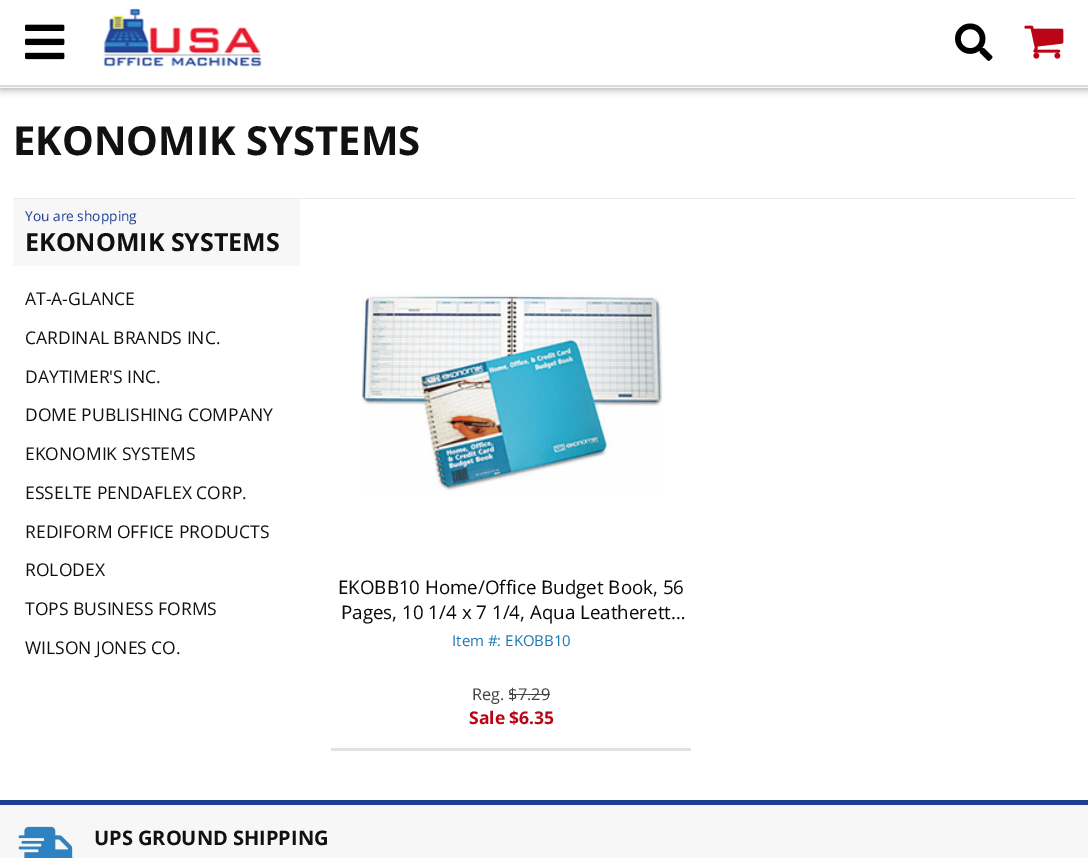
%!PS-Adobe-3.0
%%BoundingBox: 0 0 1088 858
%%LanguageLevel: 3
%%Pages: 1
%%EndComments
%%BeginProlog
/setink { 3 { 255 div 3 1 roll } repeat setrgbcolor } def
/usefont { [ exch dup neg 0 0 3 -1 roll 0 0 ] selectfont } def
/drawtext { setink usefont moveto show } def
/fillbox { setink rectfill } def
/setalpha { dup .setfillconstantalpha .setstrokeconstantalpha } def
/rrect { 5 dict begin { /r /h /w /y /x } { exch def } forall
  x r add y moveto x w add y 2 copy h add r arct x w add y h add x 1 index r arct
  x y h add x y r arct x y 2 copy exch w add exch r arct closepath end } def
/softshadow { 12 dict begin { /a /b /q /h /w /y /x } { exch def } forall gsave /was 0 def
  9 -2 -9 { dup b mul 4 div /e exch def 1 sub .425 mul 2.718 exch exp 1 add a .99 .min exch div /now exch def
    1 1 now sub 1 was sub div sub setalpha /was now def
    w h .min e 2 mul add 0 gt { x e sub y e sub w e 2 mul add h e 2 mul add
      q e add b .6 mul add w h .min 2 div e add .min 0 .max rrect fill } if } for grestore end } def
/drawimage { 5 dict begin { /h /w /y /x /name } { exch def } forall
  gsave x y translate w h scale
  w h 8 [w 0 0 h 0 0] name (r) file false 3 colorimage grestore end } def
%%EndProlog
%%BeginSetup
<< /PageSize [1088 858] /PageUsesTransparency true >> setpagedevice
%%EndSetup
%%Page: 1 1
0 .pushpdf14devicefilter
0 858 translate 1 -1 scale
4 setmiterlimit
0 0 1088 858 255 255 255 fillbox
0 0 0 setink
0 1 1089 89 0 4 0.3 softshadow
0 0 1088 85 255 255 255 fillbox
(assets/img1.rgb) 25 24 40 36 drawimage
(assets/img2.rgb) 103 8 159 59 drawimage
(assets/img3.rgb) 955 23 38 38 drawimage
(assets/img4.rgb) 1024 25 40 34 drawimage
0 87 1088 1 247 247 247 fillbox
0 85 1088 2 221 221 221 fillbox
(EKONOMIK SYSTEMS) 13 155 /OpenSans-Bold 40 17 17 17 drawtext
13 198 1063 1 234 234 234 fillbox
13 199 287 67 247 247 247 fillbox
(You are shopping) 25 221 /OpenSans-Regular 13.75 28 61 146 drawtext
(EKONOMIK SYSTEMS) 25 251 /OpenSans-Bold 25 17 17 17 drawtext
(AT-A-GLANCE) 25 305 /OpenSans-Regular 17.5 17 17 17 drawtext
(CARDINAL BRANDS INC.) 25 344 /OpenSans-Regular 17.5 17 17 17 drawtext
(DAYTIMER'S INC.) 25 383 /OpenSans-Regular 17.5 17 17 17 drawtext
(DOME PUBLISHING COMPANY) 25 421 /OpenSans-Regular 17.5 17 17 17 drawtext
(EKONOMIK SYSTEMS) 25 460 /OpenSans-Regular 17.5 17 17 17 drawtext
(ESSELTE PENDAFLEX CORP.) 25 499 /OpenSans-Regular 17.5 17 17 17 drawtext
(REDIFORM OFFICE PRODUCTS) 25 538 /OpenSans-Regular 17.5 17 17 17 drawtext
(ROLODEX) 25 576 /OpenSans-Regular 17.5 17 17 17 drawtext
(TOPS BUSINESS FORMS) 25 615 /OpenSans-Regular 17.5 17 17 17 drawtext
(WILSON JONES CO.) 25 654 /OpenSans-Regular 17.5 17 17 17 drawtext
331 748 360 3 226 226 226 fillbox
(assets/img5.rgb) 361 292 302 200 drawimage
(EKOBB10 Home/Office Budget Book, 56) 338 594 /OpenSans-Regular 18.75 9 9 9 drawtext
(Pages, 10 1/4 x 7 1/4, Aqua Leatherett…) 341 619 /OpenSans-Regular 18.75 9 9 9 drawtext
(Item #: EKOBB10) 452 646 /OpenSans-Regular 15 25 119 178 drawtext
(Reg. $7.29) 472 700 /OpenSans-Regular 16.25 66 66 66 drawtext
509 694 41 1 66 66 66 fillbox
(Sale $6.35) 469 724 /OpenSans-Bold 17.5 187 4 22 drawtext
0 805 1088 53 247 247 247 fillbox
0 800 1088 5 28 61 146 fillbox
(assets/img6.rgb) 18 826 57 32 drawimage
(UPS GROUND SHIPPING) 94 845 /OpenSans-Bold 20 17 17 17 drawtext
.poppdf14devicefilter showpage
%%EOF
